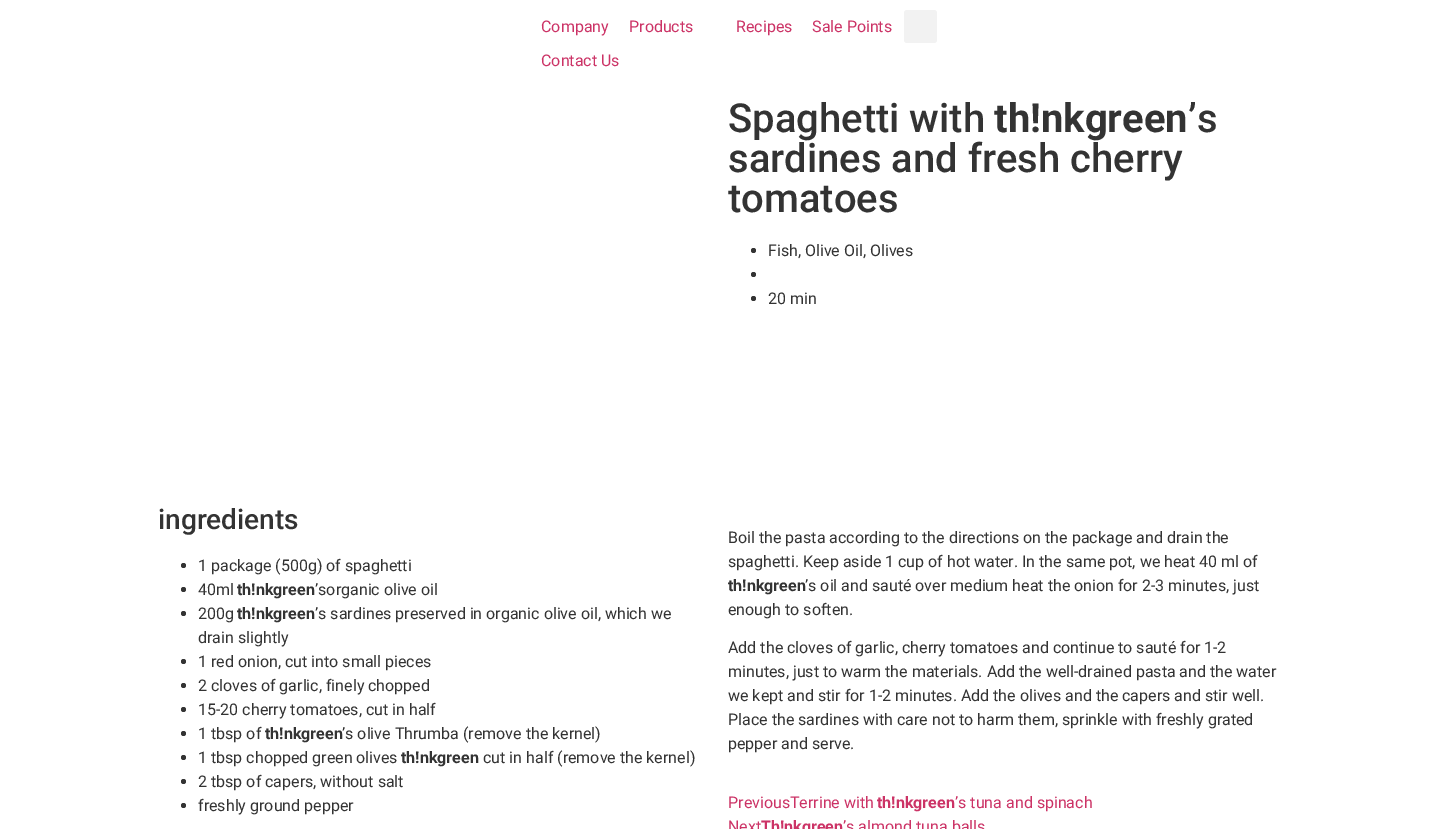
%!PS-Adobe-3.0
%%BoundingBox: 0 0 1435 829
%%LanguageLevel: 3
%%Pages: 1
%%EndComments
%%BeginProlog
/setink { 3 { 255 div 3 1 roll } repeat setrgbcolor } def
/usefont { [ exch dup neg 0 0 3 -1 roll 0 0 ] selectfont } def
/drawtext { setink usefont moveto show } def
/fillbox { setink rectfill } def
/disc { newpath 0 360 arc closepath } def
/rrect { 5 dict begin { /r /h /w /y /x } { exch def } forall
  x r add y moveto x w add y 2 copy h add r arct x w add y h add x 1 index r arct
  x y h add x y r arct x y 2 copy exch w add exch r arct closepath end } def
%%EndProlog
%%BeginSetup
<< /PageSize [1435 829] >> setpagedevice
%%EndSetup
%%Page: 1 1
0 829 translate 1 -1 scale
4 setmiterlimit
0 0 1435 829 255 255 255 fillbox
(Company) 541 32 /Roboto-Regular 16 204 51 102 drawtext
(Products) 629 32 /Roboto-Regular 16 204 51 102 drawtext
(Recipes) 736 32 /Roboto-Regular 16 204 51 102 drawtext
(Sale Points) 812 32 /Roboto-Regular 16 204 51 102 drawtext
(Contact Us) 541 66 /Roboto-Regular 16 204 51 102 drawtext
242 242 242 setink
904 10 33 33 3 rrect fill
(Spaghetti with) 728 132 /Roboto-Medium 40 51 51 51 drawtext
(th!nkgreen) 994 132 /Roboto-Bold 40 51 51 51 drawtext
(’s) 1188 132 /Roboto-Medium 40 51 51 51 drawtext
(sardines and fresh cherry) 728 172 /Roboto-Medium 40 51 51 51 drawtext
(tomatoes) 728 212 /Roboto-Medium 40 51 51 51 drawtext
753.5 250.5 2.5 disc fill
(Fish, Olive Oil, Olives) 768 256 /Roboto-Regular 16 51 51 51 drawtext
753.5 274.5 2.5 disc fill
753.5 298.5 2.5 disc fill
(20 min) 768 304 /Roboto-Regular 16 51 51 51 drawtext
(ingredients) 158 529 /Roboto-Medium 28 51 51 51 drawtext
183.5 565.5 2.5 disc fill
(1 package \(500g\) of spaghetti) 198 571 /Roboto-Regular 16 51 51 51 drawtext
183.5 589.5 2.5 disc fill
(40ml) 198 595 /Roboto-Regular 16 51 51 51 drawtext
(th!nkgreen) 237 595 /Roboto-Bold 16 51 51 51 drawtext
(’sorganic olive oil) 315 595 /Roboto-Regular 16 51 51 51 drawtext
183.5 613.5 2.5 disc fill
(200g) 198 619 /Roboto-Regular 16 51 51 51 drawtext
(th!nkgreen) 237 619 /Roboto-Bold 16 51 51 51 drawtext
(’s sardines preserved in organic olive oil, which we) 315 619 /Roboto-Regular 16 51 51 51 drawtext
(drain slightly) 198 643 /Roboto-Regular 16 51 51 51 drawtext
183.5 661.5 2.5 disc fill
(1 red onion, cut into small pieces) 198 667 /Roboto-Regular 16 51 51 51 drawtext
183.5 685.5 2.5 disc fill
(2 cloves of garlic, finely chopped) 198 691 /Roboto-Regular 16 51 51 51 drawtext
183.5 709.5 2.5 disc fill
(15-20 cherry tomatoes, cut in half) 198 715 /Roboto-Regular 16 51 51 51 drawtext
183.5 733.5 2.5 disc fill
(1 tbsp of) 198 739 /Roboto-Regular 16 51 51 51 drawtext
(th!nkgreen) 265 739 /Roboto-Bold 16 51 51 51 drawtext
(’s olive Thrumba \(remove the kernel\)) 342 739 /Roboto-Regular 16 51 51 51 drawtext
183.5 757.5 2.5 disc fill
(1 tbsp chopped green olives) 198 763 /Roboto-Regular 16 51 51 51 drawtext
(th!nkgreen) 401 763 /Roboto-Bold 16 51 51 51 drawtext
(cut in half \(remove the kernel\)) 483 763 /Roboto-Regular 16 51 51 51 drawtext
183.5 781.5 2.5 disc fill
(2 tbsp of capers, without salt) 198 787 /Roboto-Regular 16 51 51 51 drawtext
183.5 805.5 2.5 disc fill
(freshly ground pepper) 198 811 /Roboto-Regular 16 51 51 51 drawtext
(Boil the pasta according to the directions on the package and drain the) 728 543 /Roboto-Regular 16 51 51 51 drawtext
(spaghetti. Keep aside 1 cup of hot water. In the same pot, we heat 40 ml of) 728 567 /Roboto-Regular 16 51 51 51 drawtext
(th!nkgreen) 728 591 /Roboto-Bold 16 51 51 51 drawtext
(’s oil and sauté over medium heat the onion for 2-3 minutes, just) 805 591 /Roboto-Regular 16 51 51 51 drawtext
(enough to soften.) 728 615 /Roboto-Regular 16 51 51 51 drawtext
(Add the cloves of garlic, cherry tomatoes and continue to sauté for 1-2) 728 653 /Roboto-Regular 16 51 51 51 drawtext
(minutes, just to warm the materials. Add the well-drained pasta and the water) 728 677 /Roboto-Regular 16 51 51 51 drawtext
(we kept and stir for 1-2 minutes. Add the olives and the capers and stir well.) 728 701 /Roboto-Regular 16 51 51 51 drawtext
(Place the sardines with care not to harm them, sprinkle with freshly grated) 728 725 /Roboto-Regular 16 51 51 51 drawtext
(pepper and serve.) 728 749 /Roboto-Regular 16 51 51 51 drawtext
(PreviousTerrine with) 728 808 /Roboto-Regular 16 204 51 102 drawtext
(th!nkgreen) 877 808 /Roboto-Bold 16 204 51 102 drawtext
(’s tuna and spinach) 955 808 /Roboto-Regular 16 204 51 102 drawtext
(Next) 728 832 /Roboto-Regular 16 204 51 102 drawtext
(Th!nkgreen) 761 832 /Roboto-Bold 16 204 51 102 drawtext
(’s almond tuna balls) 843 832 /Roboto-Regular 16 204 51 102 drawtext
showpage
%%EOF
